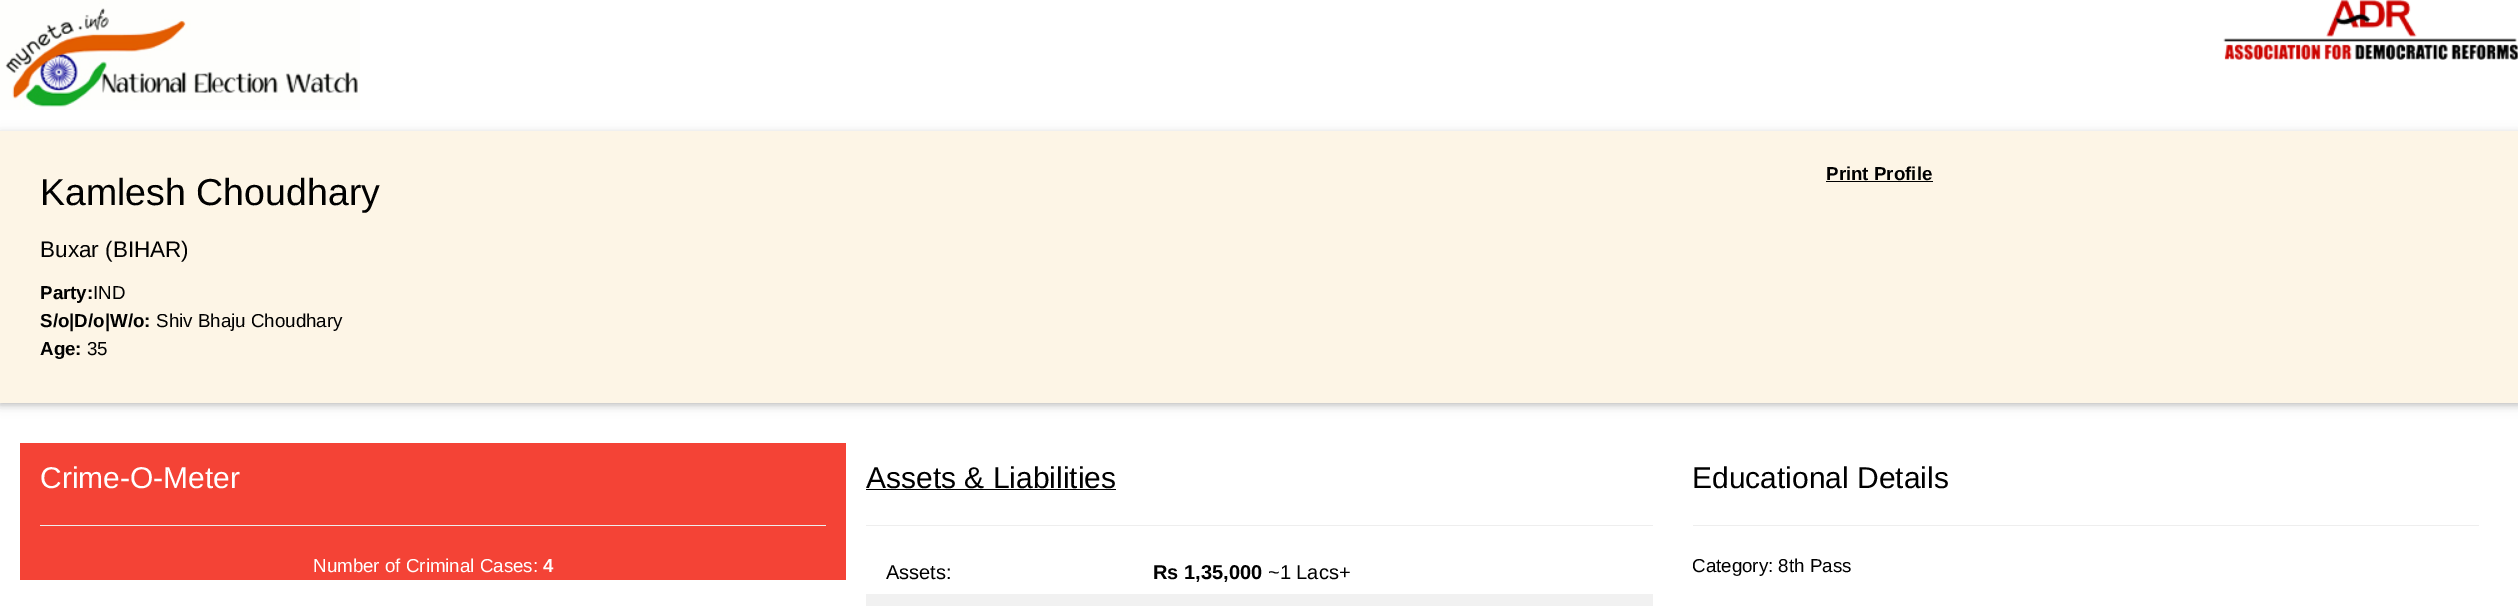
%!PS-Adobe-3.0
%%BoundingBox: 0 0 2518 606
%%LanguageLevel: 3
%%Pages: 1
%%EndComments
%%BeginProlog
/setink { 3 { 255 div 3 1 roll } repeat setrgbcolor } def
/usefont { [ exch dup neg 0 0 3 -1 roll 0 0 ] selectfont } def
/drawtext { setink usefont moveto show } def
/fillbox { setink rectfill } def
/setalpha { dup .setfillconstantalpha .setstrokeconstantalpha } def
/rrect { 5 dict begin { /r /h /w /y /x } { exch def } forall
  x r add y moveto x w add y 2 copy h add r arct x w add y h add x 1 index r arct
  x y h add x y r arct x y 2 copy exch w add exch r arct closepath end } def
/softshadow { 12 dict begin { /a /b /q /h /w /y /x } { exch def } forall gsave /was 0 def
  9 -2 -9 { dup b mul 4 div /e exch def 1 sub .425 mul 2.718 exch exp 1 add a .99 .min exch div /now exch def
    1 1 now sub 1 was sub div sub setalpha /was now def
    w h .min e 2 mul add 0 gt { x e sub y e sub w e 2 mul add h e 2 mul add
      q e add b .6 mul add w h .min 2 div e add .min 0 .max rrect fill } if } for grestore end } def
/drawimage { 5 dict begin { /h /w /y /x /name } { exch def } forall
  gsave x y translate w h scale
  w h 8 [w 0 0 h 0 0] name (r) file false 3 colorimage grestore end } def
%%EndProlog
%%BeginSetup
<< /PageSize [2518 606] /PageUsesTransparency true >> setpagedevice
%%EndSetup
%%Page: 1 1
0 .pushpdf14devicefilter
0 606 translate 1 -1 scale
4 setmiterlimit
0 0 2518 606 255 255 255 fillbox
(assets/img1.rgb) 0 0 360 110 drawimage
(assets/img2.rgb) 2223 0 295 60 drawimage
0 0 0 setink
0 134 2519 271 0 6 0.12 softshadow
0 134 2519 271 0 3 0.16 softshadow
0 131 2518 272 253 245 230 fillbox
(Print Profile) 1826 180 /LiberationSans-Bold 18.75 0 0 0 drawtext
1826 181 107 1 0 0 0 fillbox
(Kamlesh Choudhary) 40 205 /LiberationSans-Regular 37.5 0 0 0 drawtext
(Buxar \(BIHAR\)) 40 257 /LiberationSans-Regular 22.5 0 0 0 drawtext
(Party:) 40 299 /LiberationSans-Bold 18.75 0 0 0 drawtext
(IND) 93 299 /LiberationSans-Regular 18.75 0 0 0 drawtext
(S/o|D/o|W/o:) 40 327 /LiberationSans-Bold 18.75 0 0 0 drawtext
(Shiv Bhaju Choudhary) 156 327 /LiberationSans-Regular 18.75 0 0 0 drawtext
(Age:) 40 355 /LiberationSans-Bold 18.75 0 0 0 drawtext
(35) 87 355 /LiberationSans-Regular 18.75 0 0 0 drawtext
20 443 826 137 244 67 54 fillbox
(Crime-O-Meter) 40 488 /LiberationSans-Regular 30 255 255 255 drawtext
40 525 786 1 238 238 238 fillbox
(Number of Criminal Cases:) 313 572 /LiberationSans-Regular 18.75 255 255 255 drawtext
(4) 543 572 /LiberationSans-Bold 18.75 255 255 255 drawtext
(Assets & Liabilities) 866 488 /LiberationSans-Regular 30 0 0 0 drawtext
866 489 250 1 0 0 0 fillbox
866 525 787 1 238 238 238 fillbox
(Assets:) 886 579 /LiberationSans-Regular 20 0 0 0 drawtext
(Rs 1,35,000) 1153 579 /LiberationSans-Bold 20 0 0 0 drawtext
(~1 Lacs+) 1268 579 /LiberationSans-Regular 20 0 0 0 drawtext
866 594 787 12 241 241 241 fillbox
(Educational Details) 1692 488 /LiberationSans-Regular 30 0 0 0 drawtext
1693 525 786 1 238 238 238 fillbox
(Category: 8th Pass) 1692 572 /LiberationSans-Regular 18.75 0 0 0 drawtext
.poppdf14devicefilter showpage
%%EOF
